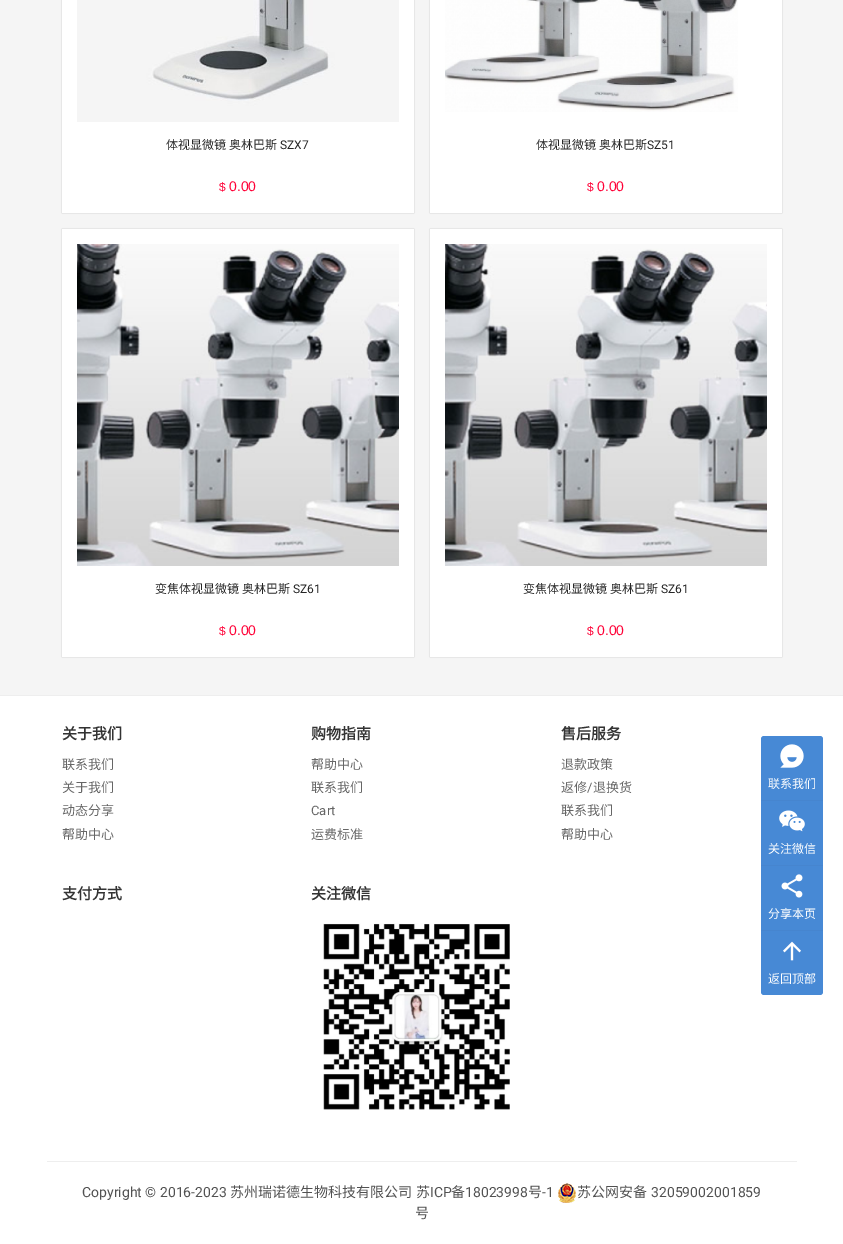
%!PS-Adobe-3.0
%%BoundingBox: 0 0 843 1244
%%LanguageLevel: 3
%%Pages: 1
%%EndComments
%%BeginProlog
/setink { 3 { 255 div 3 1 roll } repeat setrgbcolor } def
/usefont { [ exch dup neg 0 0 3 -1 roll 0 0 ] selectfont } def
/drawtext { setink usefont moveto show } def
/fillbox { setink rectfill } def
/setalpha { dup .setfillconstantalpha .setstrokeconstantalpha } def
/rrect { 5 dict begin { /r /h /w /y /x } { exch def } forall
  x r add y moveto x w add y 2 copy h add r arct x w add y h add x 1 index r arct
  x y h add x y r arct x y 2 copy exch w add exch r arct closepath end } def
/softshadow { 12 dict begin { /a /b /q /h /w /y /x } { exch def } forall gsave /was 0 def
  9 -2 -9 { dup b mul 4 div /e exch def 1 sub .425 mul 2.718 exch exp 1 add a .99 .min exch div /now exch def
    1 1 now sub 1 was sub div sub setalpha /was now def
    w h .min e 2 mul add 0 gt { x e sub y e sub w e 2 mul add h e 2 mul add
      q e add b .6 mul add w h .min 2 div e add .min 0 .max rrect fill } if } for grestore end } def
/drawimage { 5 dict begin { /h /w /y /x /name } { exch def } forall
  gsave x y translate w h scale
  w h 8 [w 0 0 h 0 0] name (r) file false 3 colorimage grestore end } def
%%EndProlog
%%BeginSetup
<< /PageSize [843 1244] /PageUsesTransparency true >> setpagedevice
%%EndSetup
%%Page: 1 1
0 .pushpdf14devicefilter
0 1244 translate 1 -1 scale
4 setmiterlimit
0 0 843 1244 245 245 245 fillbox
0 0 0 setink
62 -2 352 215 0 0.5 0.2 softshadow
62 0 352 213 255 255 255 fillbox
(assets/img1.rgb) 77 0 322 122 drawimage
(体视显微镜 奥林巴斯) 166 149 /NotoSansCJKSC-Regular 12 38 38 38 drawtext
(SZX7) 280 149 /Roboto-Regular 12 38 38 38 drawtext
($) 219 191 /LiberationSans-Regular 12 255 0 54 drawtext
(0.00) 229 191 /LiberationSans-Regular 14 255 0 54 drawtext
0 0 0 setink
430 -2 352 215 0 0.5 0.2 softshadow
430 0 352 213 255 255 255 fillbox
(assets/img2.rgb) 445 0 293 112 drawimage
(体视显微镜 奥林巴斯) 536 149 /NotoSansCJKSC-Regular 12 38 38 38 drawtext
(SZ51) 647 149 /Roboto-Regular 12 38 38 38 drawtext
($) 587 191 /LiberationSans-Regular 12 255 0 54 drawtext
(0.00) 597 191 /LiberationSans-Regular 14 255 0 54 drawtext
0 0 0 setink
62 229 352 428 0 0.5 0.2 softshadow
62 229 352 428 255 255 255 fillbox
(assets/img3.rgb) 77 244 322 322 drawimage
(变焦体视显微镜 奥林巴斯) 155 593 /NotoSansCJKSC-Regular 12 38 38 38 drawtext
(SZ61) 293 593 /Roboto-Regular 12 38 38 38 drawtext
($) 219 635 /LiberationSans-Regular 12 255 0 54 drawtext
(0.00) 229 635 /LiberationSans-Regular 14 255 0 54 drawtext
0 0 0 setink
430 229 352 428 0 0.5 0.2 softshadow
430 229 352 428 255 255 255 fillbox
(assets/img4.rgb) 445 244 322 322 drawimage
(变焦体视显微镜 奥林巴斯) 523 593 /NotoSansCJKSC-Regular 12 38 38 38 drawtext
(SZ61) 661 593 /Roboto-Regular 12 38 38 38 drawtext
($) 587 635 /LiberationSans-Regular 12 255 0 54 drawtext
(0.00) 597 635 /LiberationSans-Regular 14 255 0 54 drawtext
0 696 843 548 255 255 255 fillbox
0 695 843 1 238 238 238 fillbox
47 1161 750 1 238 238 238 fillbox
(关于我们) 62 739 /NotoSansCJKSC-Bold 15 51 51 51 drawtext
(联系我们) 62 769 /NotoSansCJKSC-Regular 13 102 102 102 drawtext
(关于我们) 62 792 /NotoSansCJKSC-Regular 13 102 102 102 drawtext
(动态分享) 62 815 /NotoSansCJKSC-Regular 13 102 102 102 drawtext
(帮助中心) 62 839 /NotoSansCJKSC-Regular 13 102 102 102 drawtext
(购物指南) 311 739 /NotoSansCJKSC-Bold 15 51 51 51 drawtext
(帮助中心) 311 769 /NotoSansCJKSC-Regular 13 102 102 102 drawtext
(联系我们) 311 792 /NotoSansCJKSC-Regular 13 102 102 102 drawtext
(Cart) 311 815 /Roboto-Regular 13 102 102 102 drawtext
(运费标准) 311 839 /NotoSansCJKSC-Regular 13 102 102 102 drawtext
(售后服务) 561 739 /NotoSansCJKSC-Bold 15 51 51 51 drawtext
(退款政策) 561 769 /NotoSansCJKSC-Regular 13 102 102 102 drawtext
(返修) 561 792 /NotoSansCJKSC-Regular 13 102 102 102 drawtext
(/) 587 792 /Roboto-Regular 13 102 102 102 drawtext
(退换货) 593 792 /NotoSansCJKSC-Regular 13 102 102 102 drawtext
(联系我们) 561 815 /NotoSansCJKSC-Regular 13 102 102 102 drawtext
(帮助中心) 561 839 /NotoSansCJKSC-Regular 13 102 102 102 drawtext
(支付方式) 62 899 /NotoSansCJKSC-Bold 15 51 51 51 drawtext
(关注微信) 311 899 /NotoSansCJKSC-Bold 15 51 51 51 drawtext
(assets/img5.rgb) 323 923 187 187 drawimage
(Copyright © 2016-2023) 82 1197 /Roboto-Regular 14 81 81 81 drawtext
(苏州瑞诺德生物科技有限公司) 230 1197 /NotoSansCJKSC-Regular 14 81 81 81 drawtext
(苏) 416 1197 /NotoSansCJKSC-Regular 14 81 81 81 drawtext
(ICP) 430 1197 /Roboto-Regular 14 81 81 81 drawtext
(备) 451 1197 /NotoSansCJKSC-Regular 14 81 81 81 drawtext
(18023998) 465 1197 /Roboto-Regular 14 81 81 81 drawtext
(号) 528 1197 /NotoSansCJKSC-Regular 14 81 81 81 drawtext
(-1) 542 1197 /Roboto-Regular 14 81 81 81 drawtext
(assets/img6.rgb) 558 1183 18 20 drawimage
(苏公网安备) 577 1197 /NotoSansCJKSC-Regular 14 81 81 81 drawtext
(32059002001859) 651 1197 /Roboto-Regular 14 81 81 81 drawtext
(号) 415 1218 /NotoSansCJKSC-Regular 14 81 81 81 drawtext
74 144 226 setink
764 736 moveto 820 736 lineto 821.5 736 823 737.5 823 739 curveto 823 800 lineto 761 800 lineto 761 739 lineto 761 737.5 762.5 736 764 736 curveto closepath fill
0.07 setalpha
38 38 38 setink
764 736 moveto 820 736 lineto 821.5 736 823 737.5 823 739 curveto 823 800 lineto 761 800 lineto 761 739 lineto 761 737.5 762.5 736 764 736 curveto closepath fill
1 setalpha
(assets/img7.rgb) 780 744 24 24 drawimage
(联系我们) 768 788 /NotoSansCJKSC-Regular 12 255 255 255 drawtext
761 800 62 1 70 133 207 fillbox
761 801 62 64 71 137 213 fillbox
(assets/img8.rgb) 779 810 26 22 drawimage
(关注微信) 768 853 /NotoSansCJKSC-Regular 12 255 255 255 drawtext
761 865 62 1 70 133 207 fillbox
761 866 62 64 71 137 213 fillbox
(assets/img9.rgb) 781 874 22 24 drawimage
(分享本页) 768 918 /NotoSansCJKSC-Regular 12 255 255 255 drawtext
74 144 226 setink
761 930 moveto 823 930 lineto 823 992 lineto 823 993.5 821.5 995 820 995 curveto 764 995 lineto 762.5 995 761 993.5 761 992 curveto closepath fill
761 930 62 1 70 133 207 fillbox
0.07 setalpha
38 38 38 setink
761 931 moveto 823 931 lineto 823 992 lineto 823 993.5 821.5 995 820 995 curveto 764 995 lineto 762.5 995 761 993.5 761 992 curveto closepath fill
1 setalpha
(assets/img10.rgb) 783 941 18 20 drawimage
(返回顶部) 768 983 /NotoSansCJKSC-Regular 12 255 255 255 drawtext
.poppdf14devicefilter showpage
%%EOF
